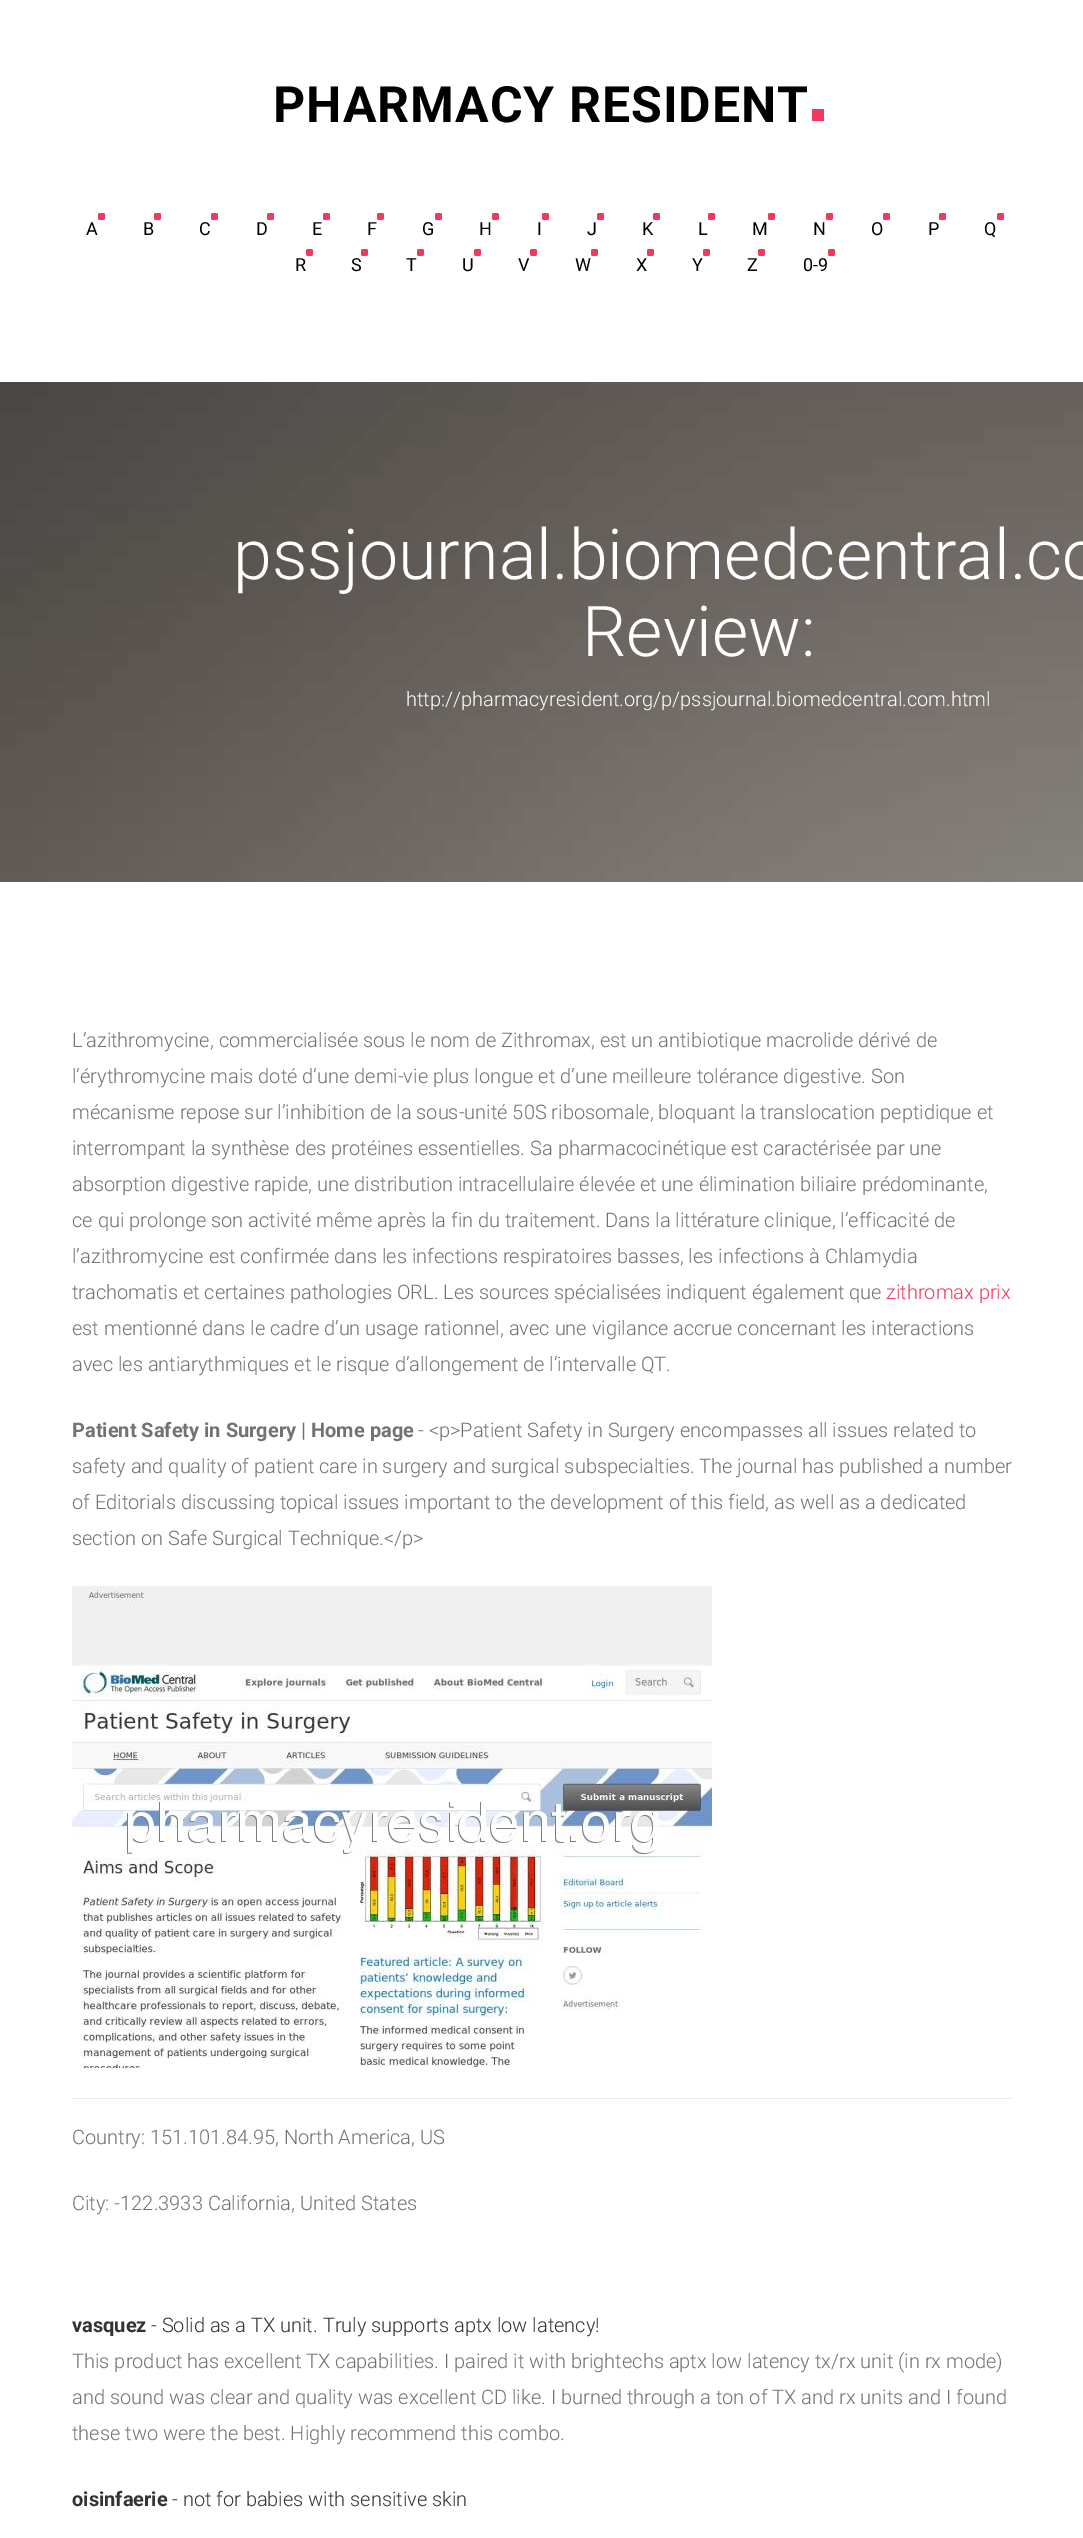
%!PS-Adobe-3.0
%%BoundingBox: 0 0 1083 2538
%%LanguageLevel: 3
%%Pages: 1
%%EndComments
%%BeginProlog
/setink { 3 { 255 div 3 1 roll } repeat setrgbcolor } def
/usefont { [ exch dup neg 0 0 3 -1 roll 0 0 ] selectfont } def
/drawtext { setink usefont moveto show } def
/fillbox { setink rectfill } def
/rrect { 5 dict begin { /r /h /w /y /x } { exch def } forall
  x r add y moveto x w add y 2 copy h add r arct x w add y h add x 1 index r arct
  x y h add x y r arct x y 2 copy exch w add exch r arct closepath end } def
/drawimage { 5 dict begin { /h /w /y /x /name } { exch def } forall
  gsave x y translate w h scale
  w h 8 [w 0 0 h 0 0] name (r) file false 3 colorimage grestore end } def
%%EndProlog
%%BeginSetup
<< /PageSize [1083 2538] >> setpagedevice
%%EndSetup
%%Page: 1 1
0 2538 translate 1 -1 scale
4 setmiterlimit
0 0 1083 2538 255 255 255 fillbox
/Roboto-Bold 50 usefont
0 0 0 setink
273 122 moveto 1 0 (PHARMACY RESIDENT) ashow
812 109 12 12 240 56 97 fillbox
98 213 7 7 2 rrect fill
(A) 86 235 /Roboto-Regular 18 0 0 0 drawtext
240 56 97 setink
154 213 7 7 2 rrect fill
(B) 143 235 /Roboto-Regular 18 0 0 0 drawtext
240 56 97 setink
211 213 7 7 2 rrect fill
(C) 199 235 /Roboto-Regular 18 0 0 0 drawtext
240 56 97 setink
267 213 7 7 2 rrect fill
(D) 256 235 /Roboto-Regular 18 0 0 0 drawtext
240 56 97 setink
323 213 7 7 2 rrect fill
(E) 312 235 /Roboto-Regular 18 0 0 0 drawtext
240 56 97 setink
377 213 7 7 2 rrect fill
(F) 367 235 /Roboto-Regular 18 0 0 0 drawtext
240 56 97 setink
435 213 7 7 2 rrect fill
(G) 422 235 /Roboto-Regular 18 0 0 0 drawtext
240 56 97 setink
492 213 7 7 2 rrect fill
(H) 479 235 /Roboto-Regular 18 0 0 0 drawtext
240 56 97 setink
542 213 7 7 2 rrect fill
(I) 537 235 /Roboto-Regular 18 0 0 0 drawtext
240 56 97 setink
597 213 7 7 2 rrect fill
(J) 587 235 /Roboto-Regular 18 0 0 0 drawtext
240 56 97 setink
653 213 7 7 2 rrect fill
(K) 642 235 /Roboto-Regular 18 0 0 0 drawtext
240 56 97 setink
708 213 7 7 2 rrect fill
(L) 698 235 /Roboto-Regular 18 0 0 0 drawtext
240 56 97 setink
768 213 7 7 2 rrect fill
(M) 752 235 /Roboto-Regular 18 0 0 0 drawtext
240 56 97 setink
826 213 7 7 2 rrect fill
(N) 813 235 /Roboto-Regular 18 0 0 0 drawtext
240 56 97 setink
883 213 7 7 2 rrect fill
(O) 871 235 /Roboto-Regular 18 0 0 0 drawtext
240 56 97 setink
939 213 7 7 2 rrect fill
(P) 928 235 /Roboto-Regular 18 0 0 0 drawtext
240 56 97 setink
997 213 7 7 2 rrect fill
(Q) 984 235 /Roboto-Regular 18 0 0 0 drawtext
240 56 97 setink
306 249 7 7 2 rrect fill
(R) 295 271 /Roboto-Regular 18 0 0 0 drawtext
240 56 97 setink
361 249 7 7 2 rrect fill
(S) 351 271 /Roboto-Regular 18 0 0 0 drawtext
240 56 97 setink
417 249 7 7 2 rrect fill
(T) 406 271 /Roboto-Regular 18 0 0 0 drawtext
240 56 97 setink
474 249 7 7 2 rrect fill
(U) 462 271 /Roboto-Regular 18 0 0 0 drawtext
240 56 97 setink
530 249 7 7 2 rrect fill
(V) 518 271 /Roboto-Regular 18 0 0 0 drawtext
240 56 97 setink
591 249 7 7 2 rrect fill
(W) 575 271 /Roboto-Regular 18 0 0 0 drawtext
240 56 97 setink
647 249 7 7 2 rrect fill
(X) 636 271 /Roboto-Regular 18 0 0 0 drawtext
240 56 97 setink
703 249 7 7 2 rrect fill
(Y) 692 271 /Roboto-Regular 18 0 0 0 drawtext
240 56 97 setink
758 249 7 7 2 rrect fill
(Z) 747 271 /Roboto-Regular 18 0 0 0 drawtext
240 56 97 setink
828 249 7 7 2 rrect fill
(0-9) 803 271 /Roboto-Regular 18 0 0 0 drawtext
(assets/img1.rgb) 0 382 1083 500 drawimage
(pssjournal.biomedcentral.co) 233 579 /Roboto-Light 70 255 255 255 drawtext
(Review:) 582 656 /Roboto-Light 70 255 255 255 drawtext
(http://pharmacyresident.org/p/pssjournal.biomedcentral.com.html) 406 706 /Roboto-Light 20 255 255 255 drawtext
(L’azithromycine, commercialisée sous le nom de Zithromax, est un antibiotique macrolide dérivé de) 72 1047 /Roboto-Light 20 114 114 114 drawtext
(l’érythromycine mais doté d’une demi-vie plus longue et d’une meilleure tolérance digestive. Son) 72 1083 /Roboto-Light 20 114 114 114 drawtext
(mécanisme repose sur l’inhibition de la sous-unité 50S ribosomale, bloquant la translocation peptidique et) 72 1119 /Roboto-Light 20 114 114 114 drawtext
(interrompant la synthèse des protéines essentielles. Sa pharmacocinétique est caractérisée par une) 72 1155 /Roboto-Light 20 114 114 114 drawtext
(absorption digestive rapide, une distribution intracellulaire élevée et une élimination biliaire prédominante,) 72 1191 /Roboto-Light 20 114 114 114 drawtext
(ce qui prolonge son activité même après la fin du traitement. Dans la littérature clinique, l’efficacité de) 72 1227 /Roboto-Light 20 114 114 114 drawtext
(l’azithromycine est confirmée dans les infections respiratoires basses, les infections à Chlamydia) 72 1263 /Roboto-Light 20 114 114 114 drawtext
(trachomatis et certaines pathologies ORL. Les sources spécialisées indiquent également que) 72 1299 /Roboto-Light 20 114 114 114 drawtext
(zithromax prix) 886 1299 /Roboto-Light 20 240 56 97 drawtext
(est mentionné dans le cadre d’un usage rationnel, avec une vigilance accrue concernant les interactions) 72 1335 /Roboto-Light 20 114 114 114 drawtext
(avec les antiarythmiques et le risque d’allongement de l’intervalle QT.) 72 1371 /Roboto-Light 20 114 114 114 drawtext
(Patient Safety in Surgery | Home page) 72 1437 /Roboto-Bold 20 114 114 114 drawtext
(- <p>Patient Safety in Surgery encompasses all issues related to) 418 1437 /Roboto-Light 20 114 114 114 drawtext
(safety and quality of patient care in surgery and surgical subspecialties. The journal has published a number) 72 1473 /Roboto-Light 20 114 114 114 drawtext
(of Editorials discussing topical issues important to the development of this field, as well as a dedicated) 72 1509 /Roboto-Light 20 114 114 114 drawtext
(section on Safe Surgical Technique.</p>) 72 1545 /Roboto-Light 20 114 114 114 drawtext
(assets/img2.rgb) 72 1586 640 482 drawimage
72 2098 940 1 238 238 238 fillbox
(Country: 151.101.84.95, North America, US) 72 2144 /Roboto-Light 20 114 114 114 drawtext
(City: -122.3933 California, United States) 72 2210 /Roboto-Light 20 114 114 114 drawtext
(vasquez) 72 2332 /Roboto-Bold 20 51 51 51 drawtext
(- Solid as a TX unit. Truly supports aptx low latency!) 151 2332 /Roboto-Light 20 51 51 51 drawtext
(This product has excellent TX capabilities. I paired it with brightechs aptx low latency tx/rx unit \(in rx mode\)) 72 2368 /Roboto-Light 20 114 114 114 drawtext
(and sound was clear and quality was excellent CD like. I burned through a ton of TX and rx units and I found) 72 2404 /Roboto-Light 20 114 114 114 drawtext
(these two were the best. Highly recommend this combo.) 72 2440 /Roboto-Light 20 114 114 114 drawtext
(oisinfaerie) 72 2506 /Roboto-Bold 20 51 51 51 drawtext
(- not for babies with sensitive skin) 172 2506 /Roboto-Light 20 51 51 51 drawtext
showpage
%%EOF
